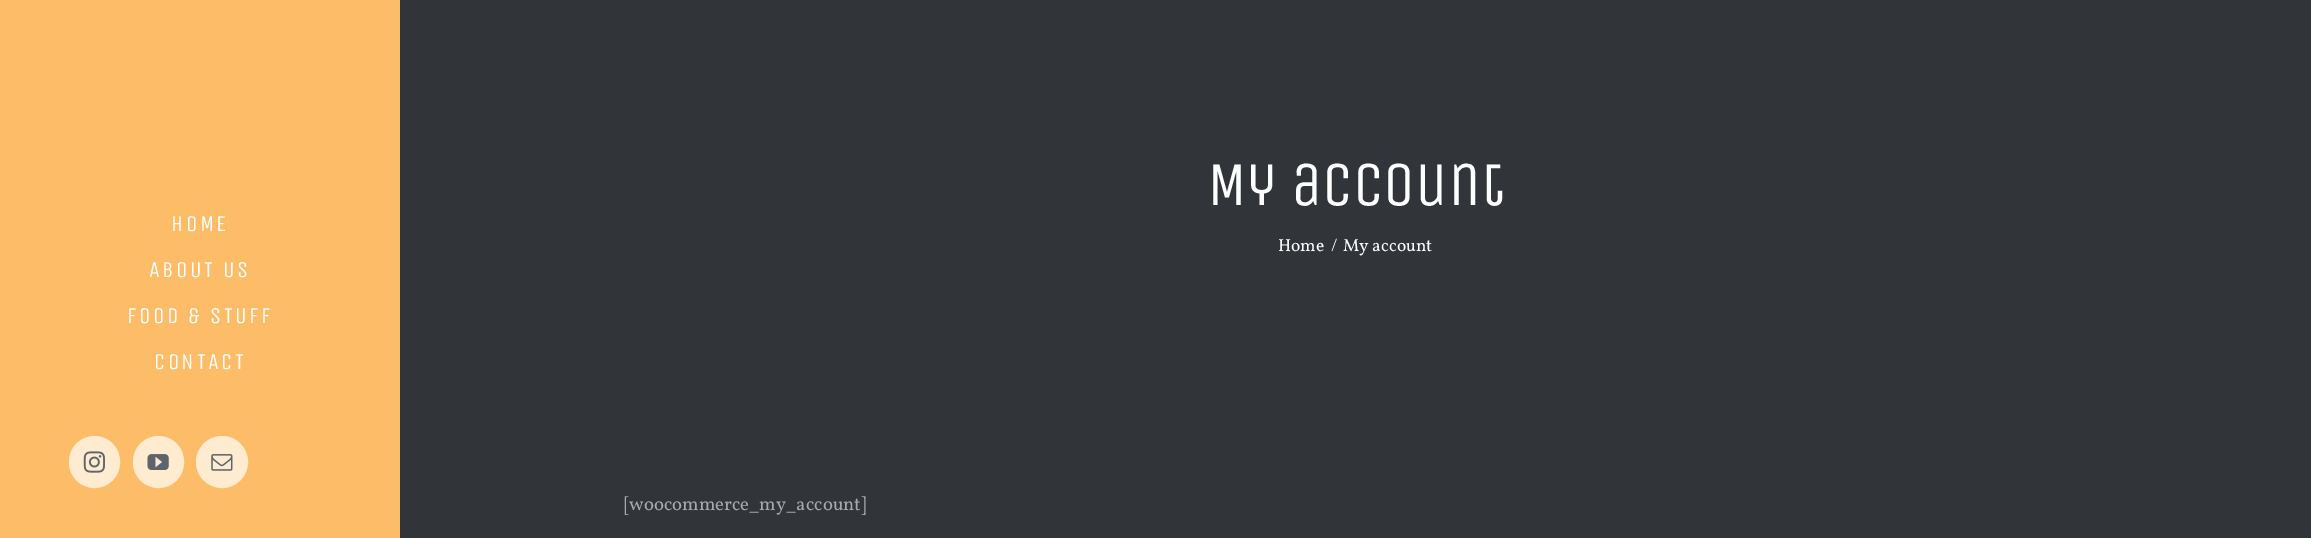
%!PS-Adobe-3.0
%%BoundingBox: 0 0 2311 538
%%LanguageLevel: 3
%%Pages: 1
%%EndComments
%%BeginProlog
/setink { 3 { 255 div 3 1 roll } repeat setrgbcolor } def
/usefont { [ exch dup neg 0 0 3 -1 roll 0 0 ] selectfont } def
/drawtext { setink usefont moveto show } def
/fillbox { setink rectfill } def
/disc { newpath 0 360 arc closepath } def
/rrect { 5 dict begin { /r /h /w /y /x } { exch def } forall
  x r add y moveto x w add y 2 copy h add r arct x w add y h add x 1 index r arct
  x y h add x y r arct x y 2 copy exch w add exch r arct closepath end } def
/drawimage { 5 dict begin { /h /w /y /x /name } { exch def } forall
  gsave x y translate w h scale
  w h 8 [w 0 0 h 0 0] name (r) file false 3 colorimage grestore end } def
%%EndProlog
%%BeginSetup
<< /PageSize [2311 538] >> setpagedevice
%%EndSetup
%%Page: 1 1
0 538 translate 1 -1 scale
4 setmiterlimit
0 0 2311 538 49 53 57 fillbox
0 0 400 538 253 188 104 fillbox
/UnicaOne-Regular 22.5 usefont
255 255 255 setink
171 231 moveto 2.5 0 (HOME) ashow
149 277 moveto 2.5 0 (ABOUT US) ashow
127 323 moveto 2.5 0 (FOOD & STUFF) ashow
154 369 moveto 2.5 0 (CONTACT) ashow
254 235 208 setink
69.5 436.5 50 51 25 rrect gsave fill grestore
stroke
(assets/img1.rgb) 83 451 22 22 drawimage
133.5 436.5 50 51 25 rrect gsave fill grestore
stroke
(assets/img2.rgb) 147 454 22 16 drawimage
222 462 25.5 disc gsave fill grestore
stroke
(assets/img3.rgb) 211 454 22 17 drawimage
(My account) 1207 205 /UnicaOne-Regular 62.5 255 255 255 drawtext
(Home) 1278 251 /Vollkorn-Regular 17.5 255 255 255 drawtext
(/) 1331 251 /Vollkorn-Regular 17.5 255 255 255 drawtext
(My account) 1343 251 /Vollkorn-Regular 17.5 255 255 255 drawtext
([woocommerce_my_account]) 624 510 /Vollkorn-Regular 18.75 170 169 169 drawtext
showpage
%%EOF
